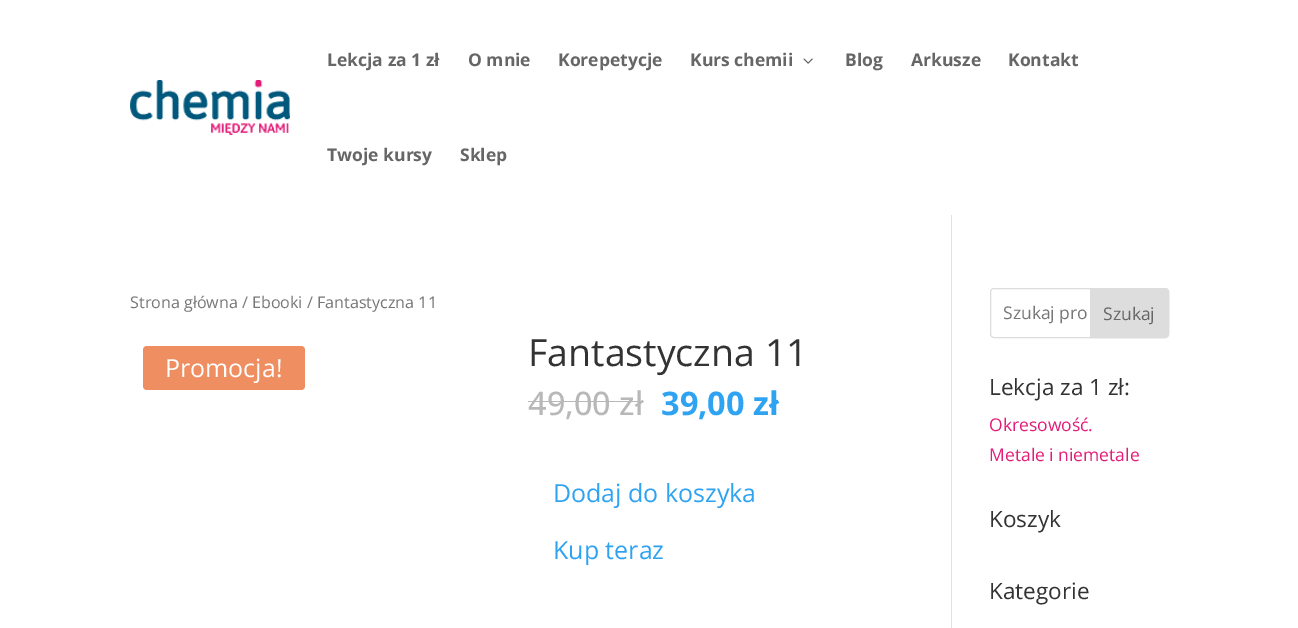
%!PS-Adobe-3.0
%%BoundingBox: 0 0 1298 628
%%LanguageLevel: 3
%%Pages: 1
%%EndComments
%%BeginProlog
/setink { 3 { 255 div 3 1 roll } repeat setrgbcolor } def
/usefont { [ exch dup neg 0 0 3 -1 roll 0 0 ] selectfont } def
/drawtext { setink usefont moveto show } def
/fillbox { setink rectfill } def
/rrect { 5 dict begin { /r /h /w /y /x } { exch def } forall
  x r add y moveto x w add y 2 copy h add r arct x w add y h add x 1 index r arct
  x y h add x y r arct x y 2 copy exch w add exch r arct closepath end } def
/drawimage { 5 dict begin { /h /w /y /x /name } { exch def } forall
  gsave x y translate w h scale
  w h 8 [w 0 0 h 0 0] name (r) file false 3 colorimage grestore end } def
%%EndProlog
%%BeginSetup
<< /PageSize [1298 628] >> setpagedevice
%%EndSetup
%%Page: 1 1
0 628 translate 1 -1 scale
4 setmiterlimit
0 0 1298 628 255 255 255 fillbox
(assets/img1.rgb) 130 80 160 55 drawimage
(Lekcja za 1 zł) 327 66 /OpenSans-Bold 17.5 102 102 102 drawtext
(O mnie) 468 66 /OpenSans-Bold 17.5 102 102 102 drawtext
(Korepetycje) 558 66 /OpenSans-Bold 17.5 102 102 102 drawtext
(Kurs chemii) 690 66 /OpenSans-Bold 17.5 102 102 102 drawtext
(assets/img2.rgb) 803 58 10 6 drawimage
(Blog) 845 66 /OpenSans-Bold 17.5 102 102 102 drawtext
(Arkusze) 911 66 /OpenSans-Bold 17.5 102 102 102 drawtext
(Kontakt) 1008 66 /OpenSans-Bold 17.5 102 102 102 drawtext
(Twoje kursy) 327 161 /OpenSans-Bold 17.5 102 102 102 drawtext
(Sklep) 460 161 /OpenSans-Bold 17.5 102 102 102 drawtext
951 215 1 413 226 226 226 fillbox
(Strona główna / Ebooki / Fantastyczna 11) 130 308 /OpenSans-Regular 16.1 118 118 118 drawtext
239 143 97 setink
143 346 162 44 4 rrect fill
(Promocja!) 165 377 /OpenSans-Regular 25 255 255 255 drawtext
(Fantastyczna 11) 528 366 /OpenSans-Regular 37.5 51 51 51 drawtext
(49,00 zł) 528 415 /OpenSans-Medium 32.5 184 184 184 drawtext
528 401 115 1 184 184 184 fillbox
(39,00 zł) 661 415 /OpenSans-Bold 32.5 46 163 242 drawtext
(Dodaj do koszyka) 553 502 /OpenSans-Regular 25 46 163 242 drawtext
(Kup teraz) 553 559 /OpenSans-Regular 25 46 163 242 drawtext
221 221 221 setink
990.5 288.5 178 49 3.5 rrect stroke
(Szukaj pro) 1003 319 /OpenSans-Regular 17.5 118 118 118 drawtext
221 221 221 setink
1090.5 288.5 moveto 1165 288.5 lineto 1167 288.5 1168.5 290 1168.5 292 curveto 1168.5 334 lineto 1168.5 336 1167 337.5 1165 337.5 curveto 1090.5 337.5 lineto closepath gsave fill grestore
stroke
(Szukaj) 1103 320 /OpenSans-Regular 17.5 102 102 102 drawtext
(Lekcja za 1 zł:) 989 395 /OpenSans-Regular 22.5 51 51 51 drawtext
(Okresowość.) 989 431 /OpenSans-Regular 17.5 227 28 121 drawtext
(Metale i niemetale) 989 461 /OpenSans-Regular 17.5 227 28 121 drawtext
(Koszyk) 989 527 /OpenSans-Regular 22.5 51 51 51 drawtext
(Kategorie) 989 599 /OpenSans-Regular 22.5 51 51 51 drawtext
showpage
%%EOF
